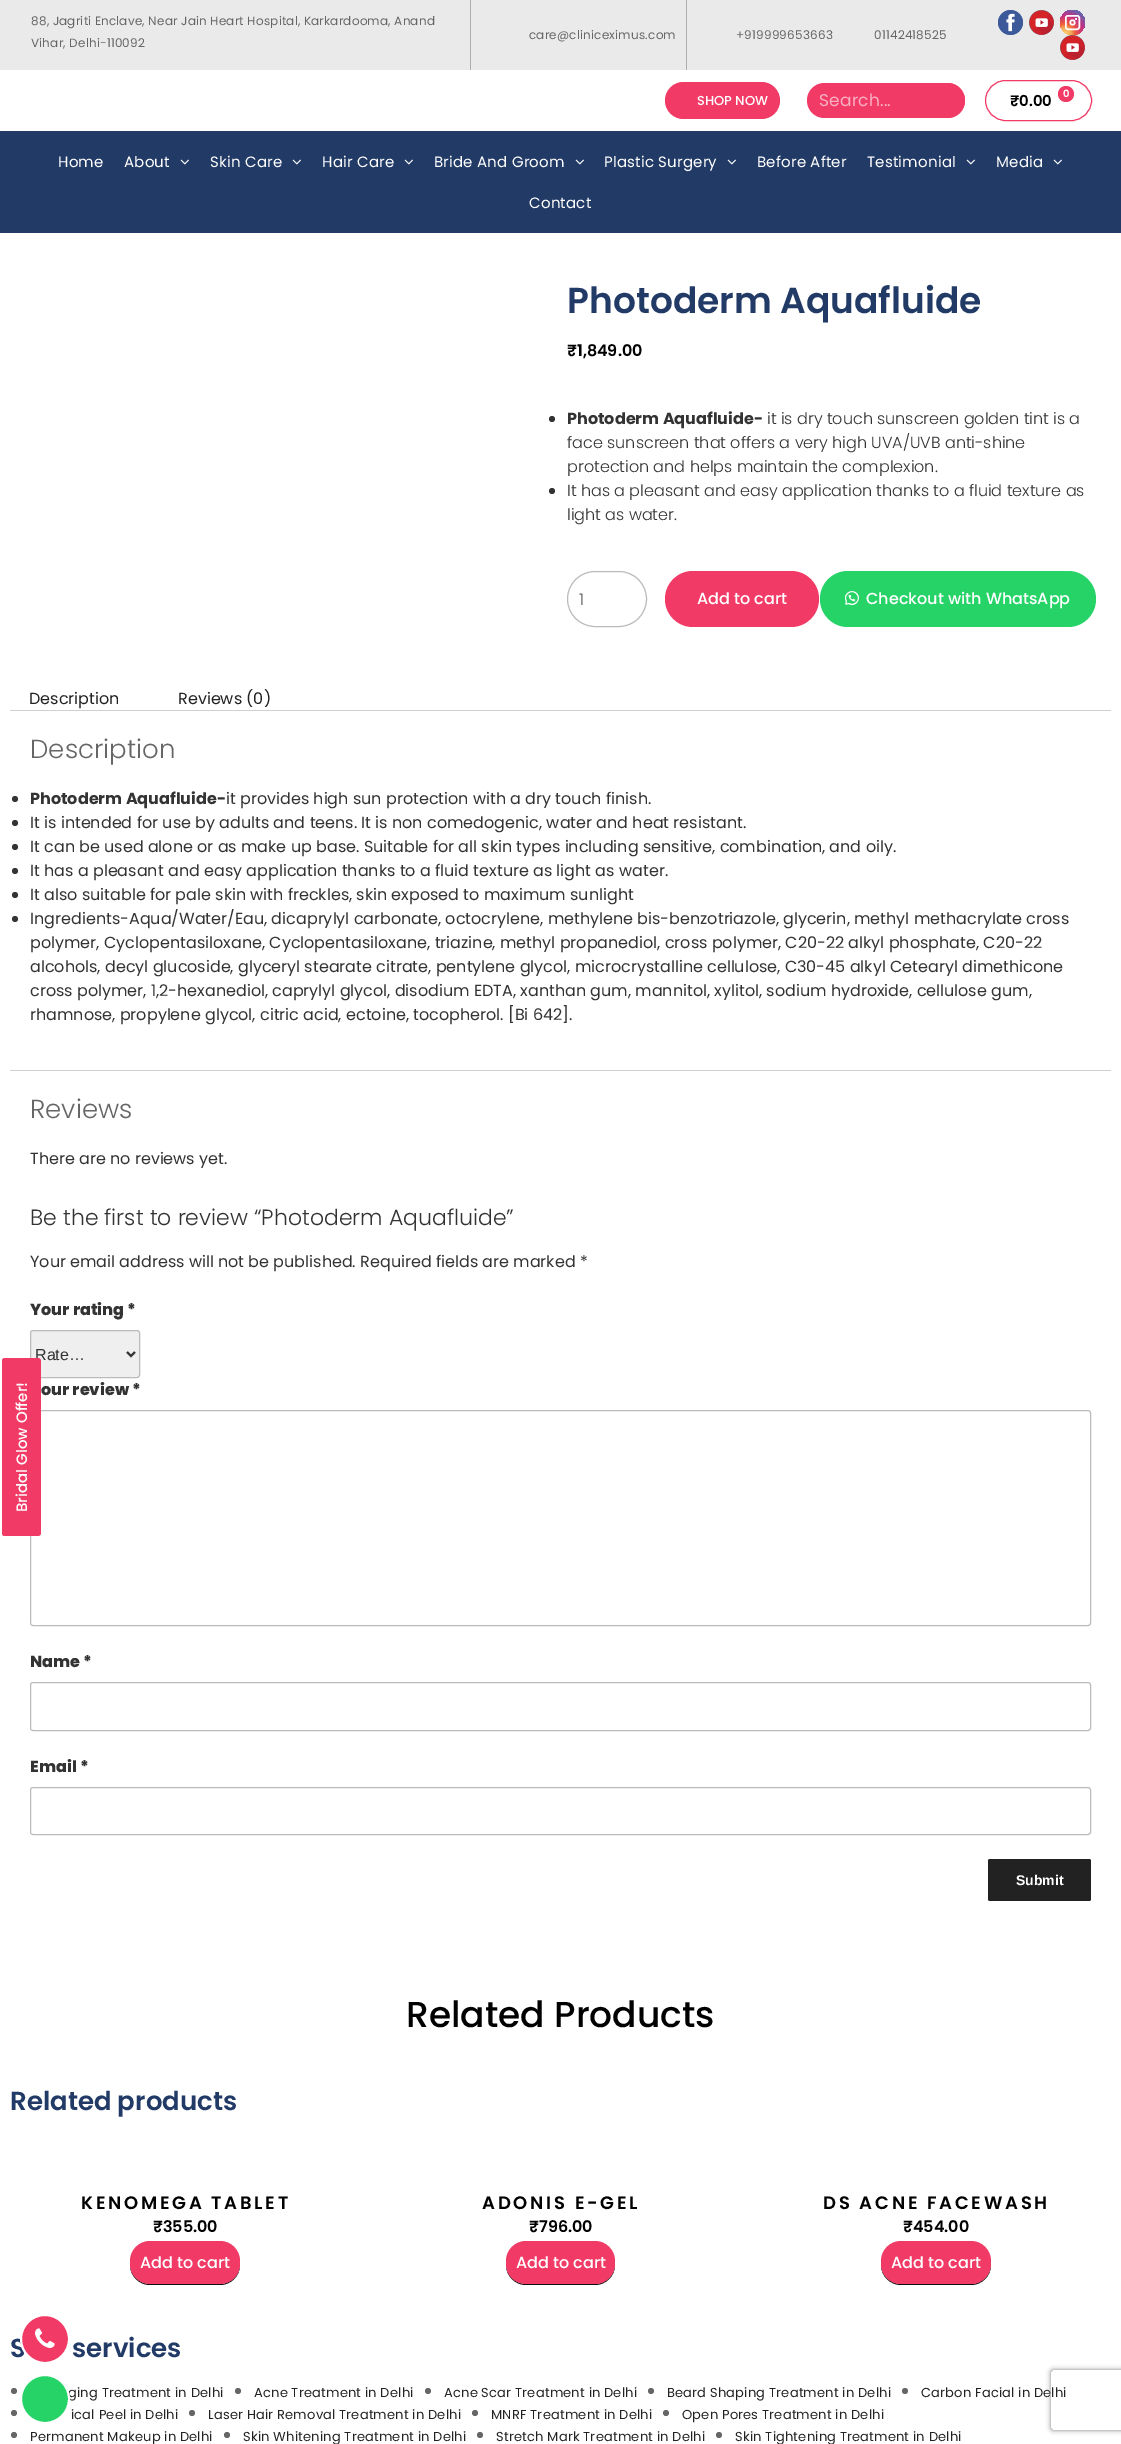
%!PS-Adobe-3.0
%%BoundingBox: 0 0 1121 2444
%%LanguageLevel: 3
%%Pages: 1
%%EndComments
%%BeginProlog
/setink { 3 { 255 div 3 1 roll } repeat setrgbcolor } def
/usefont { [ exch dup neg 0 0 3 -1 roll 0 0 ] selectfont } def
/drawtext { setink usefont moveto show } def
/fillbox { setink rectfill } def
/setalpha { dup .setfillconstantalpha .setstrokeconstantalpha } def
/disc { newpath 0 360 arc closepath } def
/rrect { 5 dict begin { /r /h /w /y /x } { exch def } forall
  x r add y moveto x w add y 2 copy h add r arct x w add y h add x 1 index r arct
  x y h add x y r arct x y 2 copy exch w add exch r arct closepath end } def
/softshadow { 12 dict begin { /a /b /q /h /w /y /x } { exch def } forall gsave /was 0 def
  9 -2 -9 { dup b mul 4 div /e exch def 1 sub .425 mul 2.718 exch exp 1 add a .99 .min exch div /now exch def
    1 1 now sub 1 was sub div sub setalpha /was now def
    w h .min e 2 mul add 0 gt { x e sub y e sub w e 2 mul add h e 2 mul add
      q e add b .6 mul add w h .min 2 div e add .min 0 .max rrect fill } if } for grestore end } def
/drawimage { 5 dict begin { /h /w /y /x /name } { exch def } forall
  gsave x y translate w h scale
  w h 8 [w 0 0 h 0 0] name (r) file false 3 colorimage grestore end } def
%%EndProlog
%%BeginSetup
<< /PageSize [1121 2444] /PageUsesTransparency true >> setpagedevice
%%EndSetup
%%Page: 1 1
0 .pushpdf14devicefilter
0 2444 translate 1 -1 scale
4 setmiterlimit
0 0 1121 2444 255 255 255 fillbox
0 0 1121 70 234 234 234 fillbox
470 0 1 70 173 173 173 fillbox
/Poppins-Regular 12 usefont
102 102 102 setink
31 25 moveto 0.2 0 (88, Jagriti Enclave, Near Jain Heart Hospital, Karkardooma, Anand) ashow
31 47 moveto 0.2 0 (Vihar, Delhi-110092) ashow
686 0 1 70 173 173 173 fillbox
102 102 102 setink
529 39 moveto 0.2 0 (care@cliniceximus.com) ashow
736 39 moveto 0.2 0 (+919999653663) ashow
874 39 moveto 0.2 0 (01142418525) ashow
(assets/img1.rgb) 998 10 25 25 drawimage
105 114 125 setink
1041.5 22.5 12.5 disc fill
(assets/img2.rgb) 1029 10 25 25 drawimage
gsave 1072.5 10 moveto 1056 10 1056 35 1072.5 35 curveto 1089 35 1089 10 1072.5 10 curveto closepath clip newpath 1065 34 translate 27 27 scale
<< /ShadingType 3 /ColorSpace /DeviceRGB /Coords [0 0 0 0 0 1] /Extend [true true] /Function << /FunctionType 3 /Domain [0 1] /Functions [<< /FunctionType 2 /Domain [0 1] /C0 [1 0.839 0.463] /C1 [0.949 0.643 0.329] /N 1 >> << /FunctionType 2 /Domain [0 1] /C0 [0.949 0.643 0.329] /C1 [0.941 0.361 0.235] /N 1 >> << /FunctionType 2 /Domain [0 1] /C0 [0.941 0.361 0.235] /C1 [0.761 0.184 0.525] /N 1 >> << /FunctionType 2 /Domain [0 1] /C0 [0.761 0.184 0.525] /C1 [0.4 0.4 0.678] /N 1 >> << /FunctionType 2 /Domain [0 1] /C0 [0.4 0.4 0.678] /C1 [0.361 0.424 0.698] /N 1 >> << /FunctionType 2 /Domain [0 1] /C0 [0.361 0.424 0.698] /C1 [0.361 0.424 0.698] /N 1 >>] /Bounds [0.25 0.38 0.7 0.96 0.99] /Encode [0 1 0 1 0 1 0 1 0 1 0 1] >> >> shfill grestore
255 255 255 setink
1076 19 1 disc fill
1072.5 19.5 moveto 1068.5 19.5 1068.5 25.5 1072.5 25.5 curveto 1076.5 25.5 1076.5 19.5 1072.5 19.5 curveto closepath 1072.5 24 moveto 1070.5 24 1070.5 21 1072.5 21 curveto 1074.5 21 1074.5 24 1072.5 24 curveto closepath fill
1.5 setlinewidth
1065.75 15.75 13.5 13.5 2.25 rrect stroke
105 114 125 setink
1072.5 47.5 12.5 disc fill
(assets/img2.rgb) 1060 35 25 25 drawimage
241 58 102 setink
665 82 115 37 18.5 rrect fill
(SHOP NOW) 697 105 /Poppins-Medium 13 255 255 255 drawtext
241 58 102 setink
807 83 158 35 17.5 rrect fill
/Poppins-Regular 17 usefont
249 176 194 setink
819 106 moveto 0.2 0 (Search...) ashow
241 58 102 setink
930 83 moveto 947.5 83 lineto 957 83 965 91 965 100.5 curveto 965 110 957 118 947.5 118 curveto 930 118 lineto closepath fill
1 setlinewidth
985.5 80.5 106 40 20 rrect stroke
1066 94 8 disc fill
(0) 1063 97 /Poppins-SemiBold 10 255 255 255 drawtext
(₹0.00) 1010 106 /Poppins-SemiBold 15 0 0 0 drawtext
0 131 1121 102 34 58 102 fillbox
/Poppins-Regular 15 usefont
255 255 255 setink
58 167 moveto 0.2 0 (Home) ashow
124 167 moveto 0.2 0 (About) ashow
(assets/img3.rgb) 180 159 9 6 drawimage
210 167 moveto 0.2 0 (Skin Care) ashow
(assets/img3.rgb) 292 159 9 6 drawimage
322 167 moveto 0.2 0 (Hair Care) ashow
(assets/img3.rgb) 404 159 9 6 drawimage
434 167 moveto 0.2 0 (Bride And Groom) ashow
(assets/img3.rgb) 575 159 9 6 drawimage
604 167 moveto 0.2 0 (Plastic Surgery) ashow
(assets/img3.rgb) 727 159 9 6 drawimage
757 167 moveto 0.2 0 (Before After) ashow
867 167 moveto 0.2 0 (Testimonial) ashow
(assets/img3.rgb) 966 159 9 6 drawimage
996 167 moveto 0.2 0 (Media) ashow
(assets/img3.rgb) 1053 159 9 6 drawimage
529 208 moveto 0.2 0 (Contact) ashow
(Photoderm Aquafluide) 567 313 /Poppins-SemiBold 36 34 58 102 drawtext
(₹1,849.00) 567 356 /Poppins-SemiBold 16 0 0 0 drawtext
51 51 51 setink
552 419 3 disc fill
(Photoderm Aquafluide-) 567 424 /Poppins-Bold 16 51 51 51 drawtext
(it is dry touch sunscreen golden tint is a) 767 424 /Poppins-Light 16 51 51 51 drawtext
(face sunscreen that offers a very high UVA/UVB anti-shine) 567 448 /Poppins-Light 16 51 51 51 drawtext
(protection and helps maintain the complexion.) 567 472 /Poppins-Light 16 51 51 51 drawtext
552 491 3 disc fill
(It has a pleasant and easy application thanks to a fluid texture as) 567 496 /Poppins-Light 16 51 51 51 drawtext
(light as water.) 567 520 /Poppins-Light 16 51 51 51 drawtext
187 187 187 setink
567.5 571.5 79 55 27.5 rrect stroke
(1) 579 605 /Poppins-Regular 16 102 102 102 drawtext
241 58 102 setink
665 571 154 56 28 rrect fill
(Add to cart) 697 604 /Poppins-Medium 16 255 255 255 drawtext
37 211 102 setink
820 571 276 56 28 rrect fill
(assets/img4.rgb) 845 591 14 14 drawimage
(Checkout with WhatsApp) 866 604 /Poppins-Medium 16 255 255 255 drawtext
(Description) 29 704 /Poppins-Regular 16 34 34 34 drawtext
(Reviews \(0\)) 178 704 /Poppins-Regular 16 34 34 34 drawtext
10 710 1101 1 211 206 210 fillbox
(Description) 30 758 /Poppins-Light 26 102 102 102 drawtext
51 51 51 setink
15 799 3 disc fill
(Photoderm Aquafluide-) 30 804 /Poppins-Bold 16 51 51 51 drawtext
(it provides high sun protection with a dry touch finish.) 226 804 /Poppins-Regular 16 51 51 51 drawtext
15 823 3 disc fill
(It is intended for use by adults and teens. It is non comedogenic, water and heat resistant.) 30 828 /Poppins-Regular 16 51 51 51 drawtext
15 847 3 disc fill
(It can be used alone or as make up base. Suitable for all skin types including sensitive, combination, and oily.) 30 852 /Poppins-Regular 16 51 51 51 drawtext
15 871 3 disc fill
(It has a pleasant and easy application thanks to a fluid texture as light as water.) 30 876 /Poppins-Regular 16 51 51 51 drawtext
15 895 3 disc fill
(It also suitable for pale skin with freckles, skin exposed to maximum sunlight) 30 900 /Poppins-Regular 16 51 51 51 drawtext
15 919 3 disc fill
(Ingredients-Aqua/Water/Eau, dicaprylyl carbonate, octocrylene, methylene bis-benzotriazole, glycerin, methyl methacrylate cross) 30 924 /Poppins-Regular 16 51 51 51 drawtext
(polymer, Cyclopentasiloxane, Cyclopentasiloxane, triazine, methyl propanediol, cross polymer, C20-22 alkyl phosphate, C20-22) 30 948 /Poppins-Regular 16 51 51 51 drawtext
(alcohols, decyl glucoside, glyceryl stearate citrate, pentylene glycol, microcrystalline cellulose, C30-45 alkyl Cetearyl dimethicone) 30 972 /Poppins-Regular 16 51 51 51 drawtext
(cross polymer, 1,2-hexanediol, caprylyl glycol, disodium EDTA, xanthan gum, mannitol, xylitol, sodium hydroxide, cellulose gum,) 30 996 /Poppins-Regular 16 51 51 51 drawtext
(rhamnose, propylene glycol, citric acid, ectoine, tocopherol. [Bi 642].) 30 1020 /Poppins-Regular 16 51 51 51 drawtext
10 1070 1101 1 211 206 210 fillbox
(Reviews) 30 1118 /Poppins-Light 26 102 102 102 drawtext
(There are no reviews yet.) 30 1164 /Poppins-Regular 16 51 51 51 drawtext
(Be the first to review “Photoderm Aquafluide”) 30 1225 /Poppins-Light 22 51 51 51 drawtext
(Your email address will not be published. Required fields are marked *) 30 1267 /Poppins-Regular 16 51 51 51 drawtext
(Your rating *) 30 1315 /Poppins-ExtraBold 16 51 51 51 drawtext
239 239 239 setink
30.5 1330.5 109 47 2.5 rrect gsave fill grestore
187 187 187 setink
stroke
51 51 51 setink
2 setlinewidth
127 1352 moveto 131 1356 lineto 135 1352 lineto stroke
(Rate…) 35 1360 /LiberationSans-Regular 16 51 51 51 drawtext
(our review *) 41 1395 /Poppins-ExtraBold 16 51 51 51 drawtext
187 187 187 setink
1 setlinewidth
30.5 1410.5 1060 215 2.5 rrect stroke
(Name *) 30 1667 /Poppins-ExtraBold 16 51 51 51 drawtext
187 187 187 setink
30.5 1682.5 1060 48 2.5 rrect stroke
(Email *) 30 1772 /Poppins-ExtraBold 16 51 51 51 drawtext
187 187 187 setink
30.5 1787.5 1060 47 2.5 rrect stroke
34 34 34 setink
988 1859 103 42 2 rrect fill
(Submit) 1016 1885 /LiberationSans-Bold 14 255 255 255 drawtext
(Related Products) 406 2027 /Poppins-Medium 36 0 0 0 drawtext
(Related products) 10 2110 /Poppins-SemiBold 26 34 58 102 drawtext
/Poppins-SemiBold 18 usefont
0 0 0 setink
81 2209 moveto 2.75 0 (KENOMEGA TABLET) ashow
(₹355.00) 153 2232 /Poppins-SemiBold 16 0 0 0 drawtext
15 15 15 setink
130 2264 moveto 130 2265 lineto 130 2276 139 2285 150 2285 curveto 220 2285 lineto 231 2285 240 2276 240 2265 curveto 240 2264 lineto 240 2275 231 2284 220 2284 curveto 150 2284 lineto 139 2284 130 2275 130 2264 curveto closepath fill
241 58 102 setink
130 2241 110 43 20 rrect fill
(Add to cart) 140 2268 /Poppins-Medium 16 255 255 255 drawtext
/Poppins-SemiBold 18 usefont
0 0 0 setink
482 2209 moveto 2.75 0 (ADONIS E-GEL) ashow
(₹796.00) 529 2232 /Poppins-SemiBold 16 0 0 0 drawtext
15 15 15 setink
506 2264 moveto 506 2265 lineto 506 2276 515 2285 526 2285 curveto 595 2285 lineto 606 2285 615 2276 615 2265 curveto 615 2264 lineto 615 2275 606 2284 595 2284 curveto 526 2284 lineto 515 2284 506 2275 506 2264 curveto closepath fill
241 58 102 setink
506 2241 109 43 20 rrect fill
(Add to cart) 516 2268 /Poppins-Medium 16 255 255 255 drawtext
/Poppins-SemiBold 18 usefont
0 0 0 setink
823 2209 moveto 2.75 0 (DS ACNE FACEWASH) ashow
(₹454.00) 903 2232 /Poppins-SemiBold 16 0 0 0 drawtext
15 15 15 setink
881 2264 moveto 881 2265 lineto 881 2276 890 2285 901 2285 curveto 971 2285 lineto 982 2285 991 2276 991 2265 curveto 991 2264 lineto 991 2275 982 2284 971 2284 curveto 901 2284 lineto 890 2284 881 2275 881 2264 curveto closepath fill
241 58 102 setink
881 2241 110 43 20 rrect fill
(Add to cart) 891 2268 /Poppins-Medium 16 255 255 255 drawtext
(S) 10 2357 /Poppins-SemiBold 26 34 58 102 drawtext
(services) 72 2357 /Poppins-SemiBold 26 34 58 102 drawtext
102 102 102 setink
14 2391 3 disc fill
/Poppins-Regular 13 usefont
34 34 34 setink
68 2397 moveto 0.2 0 (ging Treatment in Delhi) ashow
102 102 102 setink
238 2391 3 disc fill
34 34 34 setink
254 2397 moveto 0.2 0 (Acne Treatment in Delhi) ashow
102 102 102 setink
428 2391 3 disc fill
34 34 34 setink
444 2397 moveto 0.2 0 (Acne Scar Treatment in Delhi) ashow
102 102 102 setink
651 2391 3 disc fill
34 34 34 setink
667 2397 moveto 0.2 0 (Beard Shaping Treatment in Delhi) ashow
102 102 102 setink
905 2391 3 disc fill
34 34 34 setink
921 2397 moveto 0.2 0 (Carbon Facial in Delhi) ashow
102 102 102 setink
14 2413 3 disc fill
34 34 34 setink
71 2419 moveto 0.2 0 (ical Peel in Delhi) ashow
102 102 102 setink
192 2413 3 disc fill
34 34 34 setink
208 2419 moveto 0.2 0 (Laser Hair Removal Treatment in Delhi) ashow
102 102 102 setink
475 2413 3 disc fill
34 34 34 setink
491 2419 moveto 0.2 0 (MNRF Treatment in Delhi) ashow
102 102 102 setink
666 2413 3 disc fill
34 34 34 setink
682 2419 moveto 0.2 0 (Open Pores Treatment in Delhi) ashow
102 102 102 setink
14 2435 3 disc fill
34 34 34 setink
30 2441 moveto 0.2 0 (Permanent Makeup in Delhi) ashow
102 102 102 setink
227 2435 3 disc fill
34 34 34 setink
243 2441 moveto 0.2 0 (Skin Whitening Treatment in Delhi) ashow
102 102 102 setink
480 2435 3 disc fill
34 34 34 setink
496 2441 moveto 0.2 0 (Stretch Mark Treatment in Delhi) ashow
102 102 102 setink
719 2435 3 disc fill
34 34 34 setink
735 2441 moveto 0.2 0 (Skin Tightening Treatment in Delhi) ashow
241 58 102 setink
2 1533 moveto 2 1361 lineto 2 1359 3 1358 5 1358 curveto 38 1358 lineto 39 1358 41 1359 41 1361 curveto 41 1533 lineto 41 1535 39 1536 38 1536 curveto 5 1536 lineto 3 1536 2 1535 2 1533 curveto closepath fill
/Poppins-Medium 15 usefont
255 255 255 setink
gsave 27 1512 translate -90 rotate 0 0 moveto (Bridal Glow Offer!) show grestore
241 58 102 setink
45 2339 24 disc gsave fill grestore
255 255 255 setink
2 setlinewidth
stroke
(assets/img5.rgb) 35 2328 20 20 drawimage
37 211 102 setink
45 2399 24 disc gsave fill grestore
255 255 255 setink
stroke
gsave
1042 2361 moveto 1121 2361 lineto 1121 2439 lineto 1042 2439 lineto closepath 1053 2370 moveto 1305 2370 lineto 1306 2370 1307 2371 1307 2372 curveto 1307 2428 lineto 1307 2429 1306 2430 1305 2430 curveto 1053 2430 lineto 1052 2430 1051 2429 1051 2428 curveto 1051 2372 lineto 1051 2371 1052 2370 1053 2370 curveto closepath eoclip newpath
128 128 128 setink
1051 2370 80 60 2 2.5 1 softshadow
grestore
.poppdf14devicefilter showpage
%%EOF
